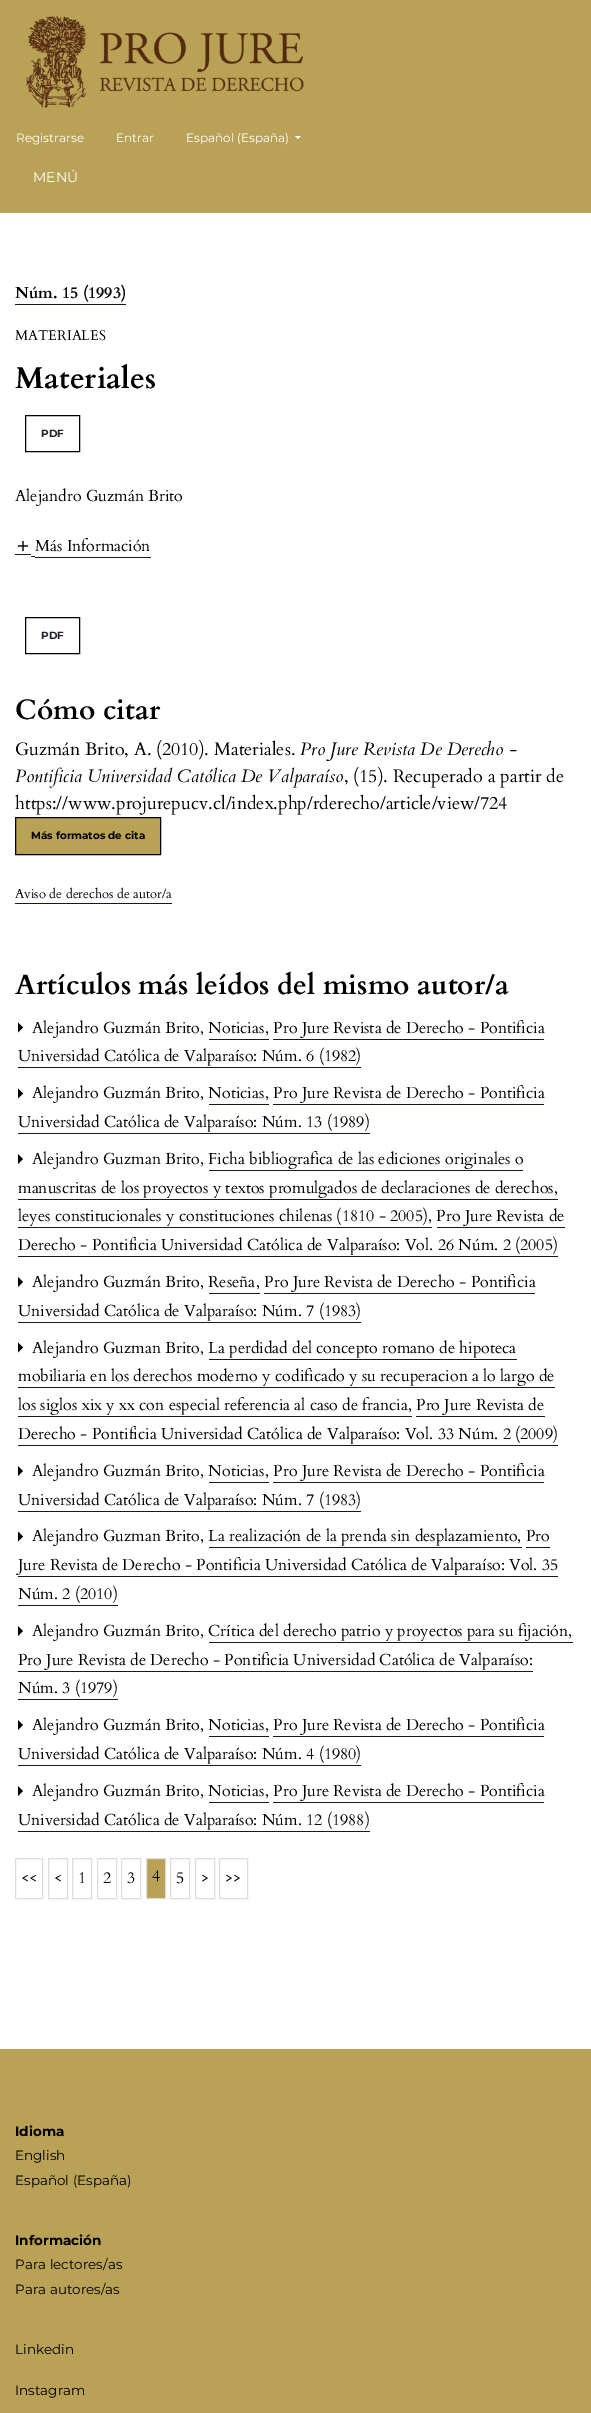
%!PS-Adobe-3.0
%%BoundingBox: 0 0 591 2413
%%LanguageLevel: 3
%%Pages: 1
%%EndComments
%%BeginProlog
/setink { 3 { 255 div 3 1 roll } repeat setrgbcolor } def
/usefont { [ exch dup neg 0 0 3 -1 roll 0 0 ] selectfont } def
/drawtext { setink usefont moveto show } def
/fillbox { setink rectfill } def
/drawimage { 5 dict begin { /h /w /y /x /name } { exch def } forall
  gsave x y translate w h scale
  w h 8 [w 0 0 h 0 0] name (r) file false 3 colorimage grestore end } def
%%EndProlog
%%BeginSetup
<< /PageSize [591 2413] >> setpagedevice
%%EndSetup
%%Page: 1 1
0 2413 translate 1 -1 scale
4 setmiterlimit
0 0 591 2413 255 255 255 fillbox
0 0 591 213 185 162 86 fillbox
(assets/img1.rgb) 26 16 278 92 drawimage
(Registrarse) 16 142 /Montserrat-Regular 12 255 255 255 drawtext
(Entrar) 116 142 /Montserrat-Regular 12 255 255 255 drawtext
(Español \(España\)) 186 142 /Montserrat-Regular 12 255 255 255 drawtext
295 136 moveto 301 136 lineto 298 139 lineto closepath fill
(MENÚ) 33 182 /Montserrat-Regular 14 255 255 255 drawtext
(Núm. 15 \(1993\)) 15 298 /Cardo-Bold 16 0 0 0 drawtext
15 304 111 1 29 25 12 fillbox
(MATERIALES) 15 340 /Cardo-Regular 14 0 0 0 drawtext
(Materiales) 15 388 /Cardo-Bold 30 0 0 0 drawtext
25.5 415.5 54 36 rectstroke
(PDF) 41 437 /Montserrat-Bold 10.4 33 37 41 drawtext
(Alejandro Guzmán Brito) 15 501 /Cardo-Regular 16 0 0 0 drawtext
15 554 16 1 29 25 12 fillbox
31 556 4 1 29 25 12 fillbox
35 557 116 1 29 25 12 fillbox
(assets/img2.rgb) 17 540 12 12 drawimage
(Más Información) 35 551 /Cardo-Regular 16 0 0 0 drawtext
25.5 617.5 54 36 rectstroke
(PDF) 41 639 /Montserrat-Bold 10.4 33 37 41 drawtext
(Cómo citar) 15 719 /Cardo-Bold 28 0 0 0 drawtext
(Guzmán Brito, A. \(2010\). Materiales.) 15 755 /Cardo-Regular 18 0 0 0 drawtext
(Pro Jure Revista De Derecho -) 300 755 /Cardo-Italic 18 0 0 0 drawtext
(Pontificia Universidad Católica De Valparaíso) 15 782 /Cardo-Italic 18 0 0 0 drawtext
(, \(15\). Recuperado a partir de) 344 782 /Cardo-Regular 18 0 0 0 drawtext
(https://www.projurepucv.cl/index.php/rderecho/article/view/724) 15 809 /Cardo-Regular 18 0 0 0 drawtext
185 162 86 setink
15.5 817.5 moveto 160.5 817.5 lineto 160.5 854.5 lineto 15.5 854.5 lineto closepath gsave fill grestore
0 0 0 setink
stroke
(Más formatos de cita) 31 839 /Montserrat-Bold 10.4 0 0 0 drawtext
(Aviso de derechos de autor/a) 15 898 /Cardo-Regular 13 0 0 0 drawtext
15 903 157 1 29 25 12 fillbox
(Artículos más leídos del mismo autor/a) 15 994 /Cardo-Bold 28 0 0 0 drawtext
18 1032.5 moveto 18 1022.5 lineto 23 1027.5 lineto closepath fill
(Alejandro Guzmán Brito, Noticias) 32 1033 /Cardo-Regular 16 0 0 0 drawtext
(, Pro Jure Revista de Derecho - Pontificia) 265 1033 /Cardo-Regular 16 0 0 0 drawtext
209 1039 60 1 29 25 12 fillbox
(Universidad Católica de Valparaíso: Núm. 6 \(1982\)) 18 1061 /Cardo-Regular 16 0 0 0 drawtext
273 1039 271 1 29 25 12 fillbox
18 1067 343 1 29 25 12 fillbox
0 0 0 setink
18 1098.5 moveto 18 1088.5 lineto 23 1093.5 lineto closepath fill
(Alejandro Guzmán Brito, Noticias) 32 1098 /Cardo-Regular 16 0 0 0 drawtext
(, Pro Jure Revista de Derecho - Pontificia) 265 1098 /Cardo-Regular 16 0 0 0 drawtext
209 1104 60 1 29 25 12 fillbox
(Universidad Católica de Valparaíso: Núm. 13 \(1989\)) 18 1127 /Cardo-Regular 16 0 0 0 drawtext
273 1104 271 1 29 25 12 fillbox
18 1133 352 1 29 25 12 fillbox
0 0 0 setink
18 1164 moveto 18 1154 lineto 23 1159 lineto closepath fill
(Alejandro Guzman Brito, Ficha bibliografica de las ediciones originales o) 32 1164 /Cardo-Regular 16 0 0 0 drawtext
(manuscritas de los proyectos y textos promulgados de declaraciones de derechos,) 18 1193 /Cardo-Regular 16 0 0 0 drawtext
209 1170 314 1 29 25 12 fillbox
18 1199 540 1 29 25 12 fillbox
(leyes constitucionales y constituciones chilenas \(1810 - 2005\), Pro Jure Revista de) 18 1221 /Cardo-Regular 16 0 0 0 drawtext
18 1227 414 1 29 25 12 fillbox
(Derecho - Pontificia Universidad Católica de Valparaíso: Vol. 26 Núm. 2 \(2005\)) 18 1250 /Cardo-Regular 16 0 0 0 drawtext
437 1227 128 1 29 25 12 fillbox
18 1256 540 1 29 25 12 fillbox
0 0 0 setink
18 1287 moveto 18 1277 lineto 23 1282 lineto closepath fill
(Alejandro Guzmán Brito, Reseña) 32 1287 /Cardo-Regular 16 0 0 0 drawtext
(, Pro Jure Revista de Derecho - Pontificia) 256 1287 /Cardo-Regular 16 0 0 0 drawtext
209 1293 51 1 29 25 12 fillbox
(Universidad Católica de Valparaíso: Núm. 7 \(1983\)) 18 1316 /Cardo-Regular 16 0 0 0 drawtext
264 1293 271 1 29 25 12 fillbox
18 1322 343 1 29 25 12 fillbox
0 0 0 setink
18 1352.5 moveto 18 1342.5 lineto 23 1347.5 lineto closepath fill
(Alejandro Guzman Brito, La perdidad del concepto romano de hipoteca) 32 1353 /Cardo-Regular 16 0 0 0 drawtext
(mobiliaria en los derechos moderno y codificado y su recuperacion a lo largo de) 18 1381 /Cardo-Regular 16 0 0 0 drawtext
209 1359 308 1 29 25 12 fillbox
18 1387 537 1 29 25 12 fillbox
(los siglos xix y xx con especial referencia al caso de francia, Pro Jure Revista de) 18 1410 /Cardo-Regular 16 0 0 0 drawtext
18 1416 394 1 29 25 12 fillbox
(Derecho - Pontificia Universidad Católica de Valparaíso: Vol. 33 Núm. 2 \(2009\)) 18 1439 /Cardo-Regular 16 0 0 0 drawtext
416 1416 129 1 29 25 12 fillbox
18 1445 540 1 29 25 12 fillbox
0 0 0 setink
18 1476 moveto 18 1466 lineto 23 1471 lineto closepath fill
(Alejandro Guzmán Brito, Noticias) 32 1476 /Cardo-Regular 16 0 0 0 drawtext
(, Pro Jure Revista de Derecho - Pontificia) 265 1476 /Cardo-Regular 16 0 0 0 drawtext
209 1482 60 1 29 25 12 fillbox
(Universidad Católica de Valparaíso: Núm. 7 \(1983\)) 18 1505 /Cardo-Regular 16 0 0 0 drawtext
273 1482 271 1 29 25 12 fillbox
18 1511 343 1 29 25 12 fillbox
0 0 0 setink
18 1541.5 moveto 18 1531.5 lineto 23 1536.5 lineto closepath fill
(Alejandro Guzman Brito, La realización de la prenda sin desplazamiento, Pro) 32 1541 /Cardo-Regular 16 0 0 0 drawtext
209 1547 313 1 29 25 12 fillbox
(Jure Revista de Derecho - Pontificia Universidad Católica de Valparaíso: Vol. 35) 18 1570 /Cardo-Regular 16 0 0 0 drawtext
526 1547 24 1 29 25 12 fillbox
18 1576 540 1 29 25 12 fillbox
(Núm. 2 \(2010\)) 18 1599 /Cardo-Regular 16 0 0 0 drawtext
18 1605 100 1 29 25 12 fillbox
0 0 0 setink
18 1636 moveto 18 1626 lineto 23 1631 lineto closepath fill
(Alejandro Guzmán Brito, Crítica del derecho patrio y proyectos para su fijación,) 32 1636 /Cardo-Regular 16 0 0 0 drawtext
209 1642 364 1 29 25 12 fillbox
(Pro Jure Revista de Derecho - Pontificia Universidad Católica de Valparaíso:) 18 1665 /Cardo-Regular 16 0 0 0 drawtext
18 1671 515 1 29 25 12 fillbox
(Núm. 3 \(1979\)) 18 1693 /Cardo-Regular 16 0 0 0 drawtext
18 1699 100 1 29 25 12 fillbox
0 0 0 setink
18 1730 moveto 18 1720 lineto 23 1725 lineto closepath fill
(Alejandro Guzmán Brito, Noticias) 32 1730 /Cardo-Regular 16 0 0 0 drawtext
(, Pro Jure Revista de Derecho - Pontificia) 265 1730 /Cardo-Regular 16 0 0 0 drawtext
209 1736 60 1 29 25 12 fillbox
(Universidad Católica de Valparaíso: Núm. 4 \(1980\)) 18 1759 /Cardo-Regular 16 0 0 0 drawtext
273 1736 271 1 29 25 12 fillbox
18 1765 343 1 29 25 12 fillbox
0 0 0 setink
18 1796 moveto 18 1786 lineto 23 1791 lineto closepath fill
(Alejandro Guzmán Brito, Noticias) 32 1796 /Cardo-Regular 16 0 0 0 drawtext
(, Pro Jure Revista de Derecho - Pontificia) 265 1796 /Cardo-Regular 16 0 0 0 drawtext
209 1802 60 1 29 25 12 fillbox
(Universidad Católica de Valparaíso: Núm. 12 \(1988\)) 18 1825 /Cardo-Regular 16 0 0 0 drawtext
273 1802 271 1 29 25 12 fillbox
18 1831 352 1 29 25 12 fillbox
221 221 221 setink
15.5 1858.5 27 40 rectstroke
(<<) 21 1883 /Cardo-Regular 16 0 0 0 drawtext
221 221 221 setink
48.5 1858.5 19 40 rectstroke
(<) 54 1883 /Cardo-Regular 16 0 0 0 drawtext
221 221 221 setink
72.5 1858.5 19 40 rectstroke
(1) 78 1883 /Cardo-Regular 16 0 0 0 drawtext
221 221 221 setink
97.5 1858.5 19 40 rectstroke
(2) 103 1883 /Cardo-Regular 16 0 0 0 drawtext
221 221 221 setink
121.5 1858.5 19 40 rectstroke
(3) 127 1883 /Cardo-Regular 16 0 0 0 drawtext
185 162 86 setink
146.5 1858.5 moveto 165.5 1858.5 lineto 165.5 1898.5 lineto 146.5 1898.5 lineto closepath gsave fill grestore
221 221 221 setink
stroke
(4) 152 1881 /Cardo-Regular 16 0 0 0 drawtext
221 221 221 setink
170.5 1858.5 19 40 rectstroke
(5) 176 1883 /Cardo-Regular 16 0 0 0 drawtext
221 221 221 setink
195.5 1858.5 19 40 rectstroke
(>) 201 1883 /Cardo-Regular 16 0 0 0 drawtext
221 221 221 setink
219.5 1858.5 28 40 rectstroke
(>>) 225 1883 /Cardo-Regular 16 0 0 0 drawtext
0 2049 591 364 185 162 86 fillbox
(Idioma) 15 2136 /Montserrat-Bold 13.5 0 0 0 drawtext
(English) 15 2160 /Montserrat-Regular 13.5 0 0 0 drawtext
(Español \(España\)) 15 2185 /Montserrat-Regular 13.5 0 0 0 drawtext
(Información) 15 2245 /Montserrat-Bold 13.5 0 0 0 drawtext
(Para lectores/as) 15 2269 /Montserrat-Regular 13.5 0 0 0 drawtext
(Para autores/as) 15 2294 /Montserrat-Regular 13.5 0 0 0 drawtext
(Linkedin) 15 2354 /Montserrat-Regular 13.5 0 0 0 drawtext
(Instagram) 15 2395 /Montserrat-Regular 13.5 0 0 0 drawtext
showpage
%%EOF
